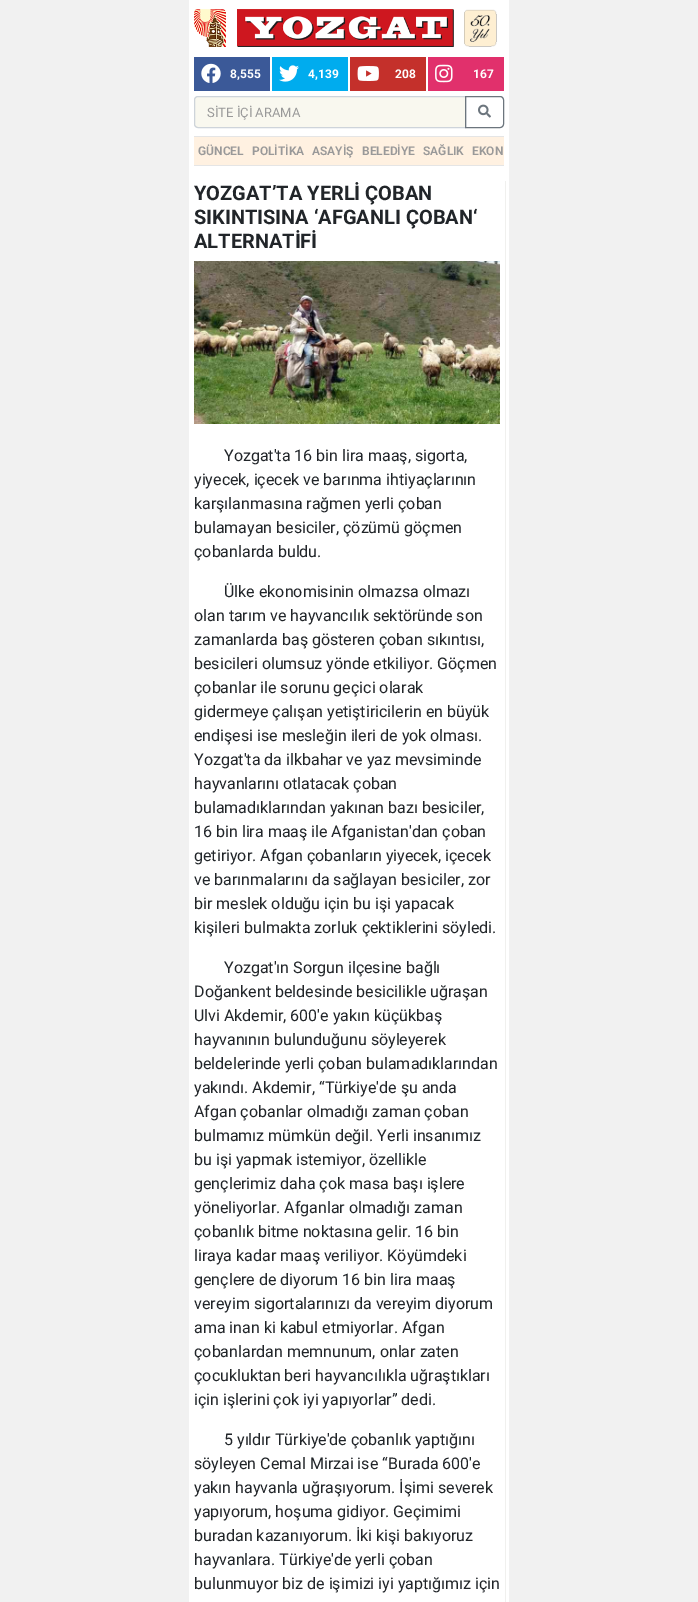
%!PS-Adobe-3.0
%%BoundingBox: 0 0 698 1602
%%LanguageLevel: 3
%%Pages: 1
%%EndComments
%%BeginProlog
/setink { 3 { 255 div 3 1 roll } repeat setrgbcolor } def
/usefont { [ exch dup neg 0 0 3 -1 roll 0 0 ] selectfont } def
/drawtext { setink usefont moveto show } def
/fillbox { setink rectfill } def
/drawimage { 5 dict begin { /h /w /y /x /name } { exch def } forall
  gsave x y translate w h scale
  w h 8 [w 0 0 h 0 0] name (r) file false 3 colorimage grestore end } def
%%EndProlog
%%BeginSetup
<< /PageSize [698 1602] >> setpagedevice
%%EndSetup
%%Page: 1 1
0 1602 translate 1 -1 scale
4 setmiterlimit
0 0 698 1602 241 241 241 fillbox
189 0 320 1602 255 255 255 fillbox
194 136 310 1 229 229 229 fillbox
(assets/img1.rgb) 194 9 32 38 drawimage
(assets/img2.rgb) 237 9 217 38 drawimage
(assets/img3.rgb) 464 9 33 38 drawimage
194 57 76 34 59 89 152 fillbox
(assets/img4.rgb) 201 63 20 20 drawimage
(8,555) 230 78 /Roboto-Bold 12 255 255 255 drawtext
272 57 76 34 0 172 238 fillbox
(assets/img5.rgb) 279 65 20 17 drawimage
(4,139) 308 78 /Roboto-Bold 12 255 255 255 drawtext
350 57 76 34 196 48 43 fillbox
(assets/img6.rgb) 357 66 22 15 drawimage
(208) 395 78 /Roboto-Bold 12 255 255 255 drawtext
428 57 76 34 225 48 108 fillbox
(assets/img7.rgb) 435 64 18 19 drawimage
(167) 473 78 /Roboto-Bold 12 255 255 255 drawtext
249 248 239 setink
198 96.5 moveto 465.5 96.5 lineto 465.5 127.5 lineto 198 127.5 lineto 196 127.5 194.5 126 194.5 124 curveto 194.5 100 lineto 194.5 98 196 96.5 198 96.5 curveto closepath gsave fill grestore
206 212 218 setink
stroke
(SİTE İÇİ ARAMA) 207 117 /Roboto-Regular 13 153 153 153 drawtext
108 117 125 setink
465.5 96.5 moveto 500 96.5 lineto 502 96.5 503.5 98 503.5 100 curveto 503.5 124 lineto 503.5 126 502 127.5 500 127.5 curveto 465.5 127.5 lineto closepath stroke
(assets/img8.rgb) 478 104 13 14 drawimage
194 137 310 28 255 241 225 fillbox
194 165 310 1 229 229 229 fillbox
(GÜNCEL) 198 155 /Roboto-SemiBold 12 153 153 153 drawtext
(POLİTİKA) 252 155 /Roboto-SemiBold 12 153 153 153 drawtext
(ASAYİŞ) 312 155 /Roboto-SemiBold 12 153 153 153 drawtext
(BELEDİYE) 362 155 /Roboto-SemiBold 12 153 153 153 drawtext
(SAĞLIK) 423 155 /Roboto-SemiBold 12 153 153 153 drawtext
(EKON) 472 155 /Roboto-SemiBold 12 153 153 153 drawtext
505 181 1 1421 240 240 238 fillbox
(YOZGAT’TA YERLİ ÇOBAN) 194 200 /Roboto-Bold 20 33 37 41 drawtext
(SIKINTISINA ‘AFGANLI ÇOBAN‘) 194 224 /Roboto-Bold 20 33 37 41 drawtext
(ALTERNATİFİ) 194 248 /Roboto-Bold 20 33 37 41 drawtext
(assets/img9.rgb) 194 261 306 163 drawimage
(Yozgat'ta 16 bin lira maaş, sigorta,) 224 461 /Roboto-Regular 16 33 37 41 drawtext
(yiyecek, içecek ve barınma ihtiyaçlarının) 194 485 /Roboto-Regular 16 33 37 41 drawtext
(karşılanmasına rağmen yerli çoban) 194 509 /Roboto-Regular 16 33 37 41 drawtext
(bulamayan besiciler, çözümü göçmen) 194 533 /Roboto-Regular 16 33 37 41 drawtext
(çobanlarda buldu.) 194 557 /Roboto-Regular 16 33 37 41 drawtext
(Ülke ekonomisinin olmazsa olmazı) 224 597 /Roboto-Regular 16 33 37 41 drawtext
(olan tarım ve hayvancılık sektöründe son) 194 621 /Roboto-Regular 16 33 37 41 drawtext
(zamanlarda baş gösteren çoban sıkıntısı,) 194 645 /Roboto-Regular 16 33 37 41 drawtext
(besicileri olumsuz yönde etkiliyor. Göçmen) 194 669 /Roboto-Regular 16 33 37 41 drawtext
(çobanlar ile sorunu geçici olarak) 194 693 /Roboto-Regular 16 33 37 41 drawtext
(gidermeye çalışan yetiştiricilerin en büyük) 194 717 /Roboto-Regular 16 33 37 41 drawtext
(endişesi ise mesleğin ileri de yok olması.) 194 741 /Roboto-Regular 16 33 37 41 drawtext
(Yozgat'ta da ilkbahar ve yaz mevsiminde) 194 765 /Roboto-Regular 16 33 37 41 drawtext
(hayvanlarını otlatacak çoban) 194 789 /Roboto-Regular 16 33 37 41 drawtext
(bulamadıklarından yakınan bazı besiciler,) 194 813 /Roboto-Regular 16 33 37 41 drawtext
(16 bin lira maaş ile Afganistan'dan çoban) 194 837 /Roboto-Regular 16 33 37 41 drawtext
(getiriyor. Afgan çobanların yiyecek, içecek) 194 861 /Roboto-Regular 16 33 37 41 drawtext
(ve barınmalarını da sağlayan besiciler, zor) 194 885 /Roboto-Regular 16 33 37 41 drawtext
(bir meslek olduğu için bu işi yapacak) 194 909 /Roboto-Regular 16 33 37 41 drawtext
(kişileri bulmakta zorluk çektiklerini söyledi.) 194 933 /Roboto-Regular 16 33 37 41 drawtext
(Yozgat'ın Sorgun ilçesine bağlı) 224 973 /Roboto-Regular 16 33 37 41 drawtext
(Doğankent beldesinde besicilikle uğraşan) 194 997 /Roboto-Regular 16 33 37 41 drawtext
(Ulvi Akdemir, 600'e yakın küçükbaş) 194 1021 /Roboto-Regular 16 33 37 41 drawtext
(hayvanının bulunduğunu söyleyerek) 194 1045 /Roboto-Regular 16 33 37 41 drawtext
(beldelerinde yerli çoban bulamadıklarından) 194 1069 /Roboto-Regular 16 33 37 41 drawtext
(yakındı. Akdemir, “Türkiye'de şu anda) 194 1093 /Roboto-Regular 16 33 37 41 drawtext
(Afgan çobanlar olmadığı zaman çoban) 194 1117 /Roboto-Regular 16 33 37 41 drawtext
(bulmamız mümkün değil. Yerli insanımız) 194 1141 /Roboto-Regular 16 33 37 41 drawtext
(bu işi yapmak istemiyor, özellikle) 194 1165 /Roboto-Regular 16 33 37 41 drawtext
(gençlerimiz daha çok masa başı işlere) 194 1189 /Roboto-Regular 16 33 37 41 drawtext
(yöneliyorlar. Afganlar olmadığı zaman) 194 1213 /Roboto-Regular 16 33 37 41 drawtext
(çobanlık bitme noktasına gelir. 16 bin) 194 1237 /Roboto-Regular 16 33 37 41 drawtext
(liraya kadar maaş veriliyor. Köyümdeki) 194 1261 /Roboto-Regular 16 33 37 41 drawtext
(gençlere de diyorum 16 bin lira maaş) 194 1285 /Roboto-Regular 16 33 37 41 drawtext
(vereyim sigortalarınızı da vereyim diyorum) 194 1309 /Roboto-Regular 16 33 37 41 drawtext
(ama inan ki kabul etmiyorlar. Afgan) 194 1333 /Roboto-Regular 16 33 37 41 drawtext
(çobanlardan memnunum, onlar zaten) 194 1357 /Roboto-Regular 16 33 37 41 drawtext
(çocukluktan beri hayvancılıkla uğraştıkları) 194 1381 /Roboto-Regular 16 33 37 41 drawtext
(için işlerini çok iyi yapıyorlar” dedi.) 194 1405 /Roboto-Regular 16 33 37 41 drawtext
(5 yıldır Türkiye'de çobanlık yaptığını) 224 1445 /Roboto-Regular 16 33 37 41 drawtext
(söyleyen Cemal Mirzai ise “Burada 600'e) 194 1469 /Roboto-Regular 16 33 37 41 drawtext
(yakın hayvanla uğraşıyorum. İşimi severek) 194 1493 /Roboto-Regular 16 33 37 41 drawtext
(yapıyorum, hoşuma gidiyor. Geçimimi) 194 1517 /Roboto-Regular 16 33 37 41 drawtext
(buradan kazanıyorum. İki kişi bakıyoruz) 194 1541 /Roboto-Regular 16 33 37 41 drawtext
(hayvanlara. Türkiye'de yerli çoban) 194 1565 /Roboto-Regular 16 33 37 41 drawtext
(bulunmuyor biz de işimizi iyi yaptığımız için) 194 1589 /Roboto-Regular 16 33 37 41 drawtext
showpage
%%EOF
